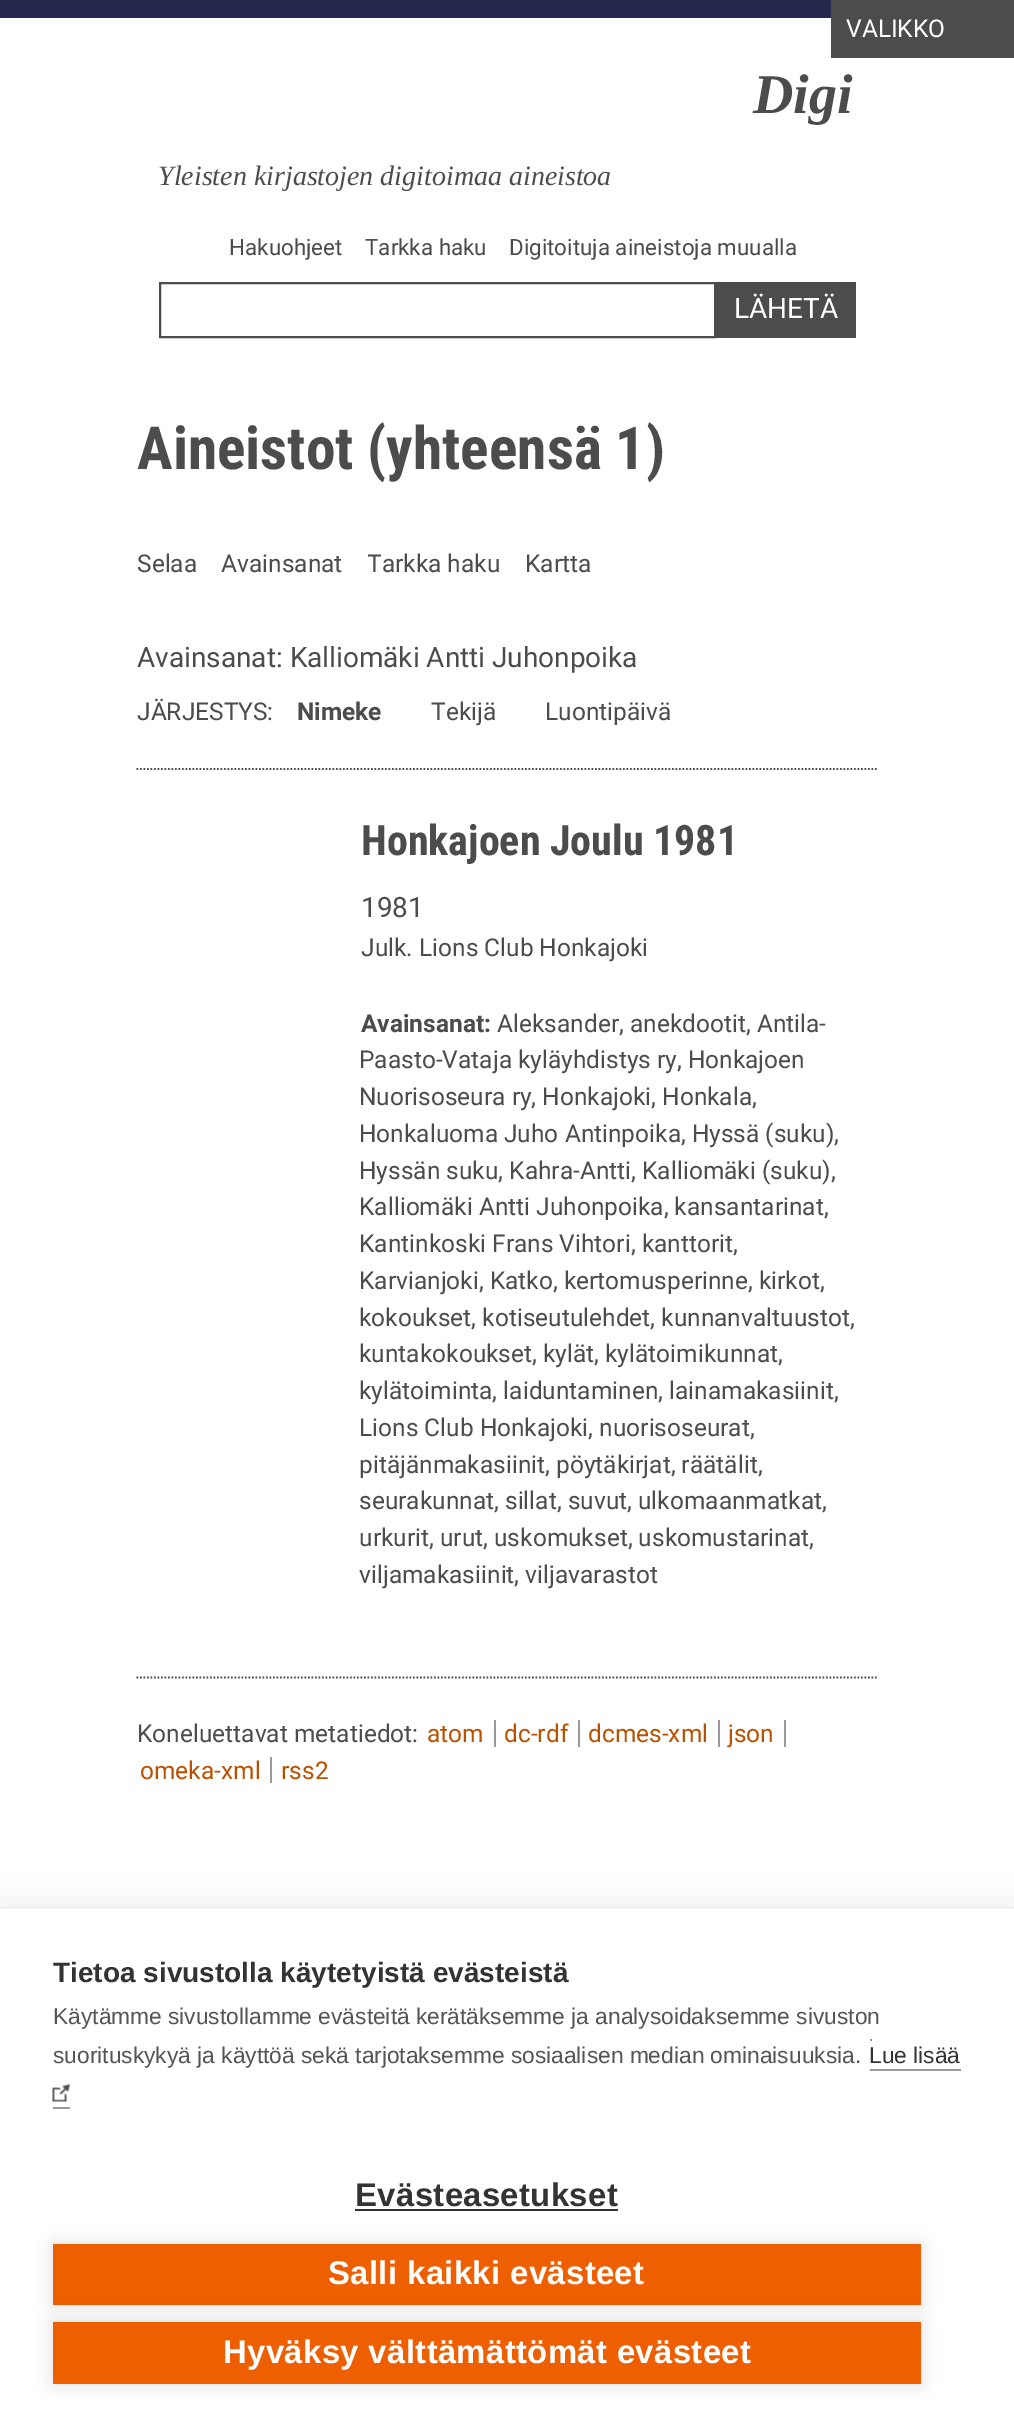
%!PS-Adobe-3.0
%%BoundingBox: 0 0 1014 2426
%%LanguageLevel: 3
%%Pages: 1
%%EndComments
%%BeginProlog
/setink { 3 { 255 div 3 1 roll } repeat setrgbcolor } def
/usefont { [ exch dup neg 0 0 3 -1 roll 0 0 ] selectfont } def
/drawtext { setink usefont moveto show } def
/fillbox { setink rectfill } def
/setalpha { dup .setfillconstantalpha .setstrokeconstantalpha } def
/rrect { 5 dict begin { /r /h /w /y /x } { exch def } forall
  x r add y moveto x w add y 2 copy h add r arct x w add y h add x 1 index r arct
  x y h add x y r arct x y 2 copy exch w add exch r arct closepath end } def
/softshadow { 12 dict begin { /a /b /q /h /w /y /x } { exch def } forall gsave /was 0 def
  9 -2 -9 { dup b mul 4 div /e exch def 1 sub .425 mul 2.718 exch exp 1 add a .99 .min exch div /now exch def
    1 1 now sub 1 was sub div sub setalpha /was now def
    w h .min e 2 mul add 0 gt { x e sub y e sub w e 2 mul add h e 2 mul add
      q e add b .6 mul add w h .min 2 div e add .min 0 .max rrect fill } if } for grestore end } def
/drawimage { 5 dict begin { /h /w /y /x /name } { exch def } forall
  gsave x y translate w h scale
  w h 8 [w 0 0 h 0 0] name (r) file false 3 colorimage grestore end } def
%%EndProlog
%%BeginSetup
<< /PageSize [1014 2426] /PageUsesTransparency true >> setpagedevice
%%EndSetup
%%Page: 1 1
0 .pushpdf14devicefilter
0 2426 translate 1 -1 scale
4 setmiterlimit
0 0 1014 2426 255 255 255 fillbox
0 0 831 18 37 40 77 fillbox
831 0 183 58 76 76 76 fillbox
(VALIKKO) 846 37 /Roboto-Regular 24.5 255 255 255 drawtext
(Digi) 753 113 /LiberationSerif-BoldItalic 56 76 76 76 drawtext
(Yleisten kirjastojen digitoimaa aineistoa) 158 185 /LiberationSerif-Italic 28 76 76 76 drawtext
(Hakuohjeet) 229 255 /Roboto-Regular 22.4 76 76 76 drawtext
(Tarkka haku) 365 255 /Roboto-Regular 22.4 76 76 76 drawtext
(Digitoituja aineistoja muualla) 509 255 /Roboto-Regular 22.4 76 76 76 drawtext
2 setlinewidth
160 283 555 54 rectstroke
716 282 140 56 76 76 76 fillbox
(LÄHETÄ) 734 318 /Roboto-Regular 28 255 255 255 drawtext
(Aineistot \(yhteensä 1\)) 137 469 /RobotoCondensed-Bold 59.5 76 76 76 drawtext
(Selaa) 137 572 /Roboto-Regular 24.5 76 76 76 drawtext
(Avainsanat) 221 572 /Roboto-Regular 24.5 76 76 76 drawtext
gsave
368 539 133 46 rectclip
(Tarkka haku) 367 572 /Roboto-Regular 24.5 76 76 76 drawtext
grestore
(Kartta) 525 572 /Roboto-Regular 24.5 76 76 76 drawtext
(Avainsanat: Kalliomäki Antti Juhonpoika) 137 667 /Roboto-Regular 28 76 76 76 drawtext
(JÄRJESTYS:) 137 720 /Roboto-Regular 24.5 76 76 76 drawtext
(Nimeke) 297 720 /Roboto-Bold 24.5 76 76 76 drawtext
(Tekijä) 431 720 /Roboto-Regular 24.5 76 76 76 drawtext
(Luontipäivä) 545 720 /Roboto-Regular 24.5 76 76 76 drawtext
1.8 setlinewidth
[1.75 1.75] 0 setdash
136.5 769 moveto 878.5 769 lineto stroke
(Honkajoen Joulu 1981) 361 855 /RobotoCondensed-Bold 42 76 76 76 drawtext
(1981) 361 917 /Roboto-Regular 28 76 76 76 drawtext
(Julk. Lions Club Honkajoki) 361 956 /Roboto-Regular 24.5 76 76 76 drawtext
(Avainsanat:) 361 1032 /Roboto-Bold 24.5 76 76 76 drawtext
(Aleksander, anekdootit, Antila-) 497 1032 /Roboto-Regular 24.5 76 76 76 drawtext
(Paasto-Vataja kyläyhdistys ry, Honkajoen) 359 1068 /Roboto-Regular 24.5 76 76 76 drawtext
(Nuorisoseura ry, Honkajoki, Honkala,) 359 1105 /Roboto-Regular 24.5 76 76 76 drawtext
(Honkaluoma Juho Antinpoika, Hyssä \(suku\),) 359 1142 /Roboto-Regular 24.5 76 76 76 drawtext
(Hyssän suku, Kahra-Antti, Kalliomäki \(suku\),) 359 1179 /Roboto-Regular 24.5 76 76 76 drawtext
(Kalliomäki Antti Juhonpoika, kansantarinat,) 359 1215 /Roboto-Regular 24.5 76 76 76 drawtext
(Kantinkoski Frans Vihtori, kanttorit,) 359 1252 /Roboto-Regular 24.5 76 76 76 drawtext
(Karvianjoki, Katko, kertomusperinne, kirkot,) 359 1289 /Roboto-Regular 24.5 76 76 76 drawtext
(kokoukset, kotiseutulehdet, kunnanvaltuustot,) 359 1326 /Roboto-Regular 24.5 76 76 76 drawtext
(kuntakokoukset, kylät, kylätoimikunnat,) 359 1362 /Roboto-Regular 24.5 76 76 76 drawtext
(kylätoiminta, laiduntaminen, lainamakasiinit,) 359 1399 /Roboto-Regular 24.5 76 76 76 drawtext
(Lions Club Honkajoki, nuorisoseurat,) 359 1436 /Roboto-Regular 24.5 76 76 76 drawtext
(pitäjänmakasiinit, pöytäkirjat, räätälit,) 359 1473 /Roboto-Regular 24.5 76 76 76 drawtext
(seurakunnat, sillat, suvut, ulkomaanmatkat,) 359 1509 /Roboto-Regular 24.5 76 76 76 drawtext
(urkurit, urut, uskomukset, uskomustarinat,) 359 1546 /Roboto-Regular 24.5 76 76 76 drawtext
(viljamakasiinit, viljavarastot) 359 1583 /Roboto-Regular 24.5 76 76 76 drawtext
136.5 1677.5 moveto 878.5 1677.5 lineto stroke
(Koneluettavat metatiedot:) 137 1742 /Roboto-Regular 24.5 76 76 76 drawtext
494 1720 2 27 153 153 153 fillbox
(atom) 427 1742 /Roboto-Regular 24.5 186 81 0 drawtext
578 1720 2 27 153 153 153 fillbox
(dc-rdf) 504 1742 /Roboto-Regular 24.5 186 81 0 drawtext
718 1720 2 27 153 153 153 fillbox
(dcmes-xml) 588 1742 /Roboto-Regular 24.5 186 81 0 drawtext
784 1720 2 27 153 153 153 fillbox
(json) 728 1742 /Roboto-Regular 24.5 186 81 0 drawtext
270 1757 2 26 153 153 153 fillbox
(omeka-xml) 140 1779 /Roboto-Regular 24.5 186 81 0 drawtext
(rss2) 281 1779 /Roboto-Regular 24.5 186 81 0 drawtext
0 0 0 setink
0 1909 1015 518 0 17.5 0.1 softshadow
0 1909 1014 517 255 255 255 fillbox
gsave
53 1953 910 161 rectclip
(Tietoa sivustolla käytetyistä evästeistä) 53 1982 /LiberationSans-Bold 28 51 51 51 drawtext
grestore
(Käytämme sivustollamme evästeitä kerätäksemme ja analysoidaksemme sivuston) 53 2024 /LiberationSans-Regular 22.75 85 85 85 drawtext
(suorituskykyä ja käyttöä sekä tarjotaksemme sosiaalisen median ominaisuuksia.) 53 2063 /LiberationSans-Regular 22.75 85 85 85 drawtext
(Lue lisää) 869 2063 /LiberationSans-Regular 22.75 51 51 51 drawtext
870 2039 2 2 153 153 153 fillbox
870 2069 91 2 153 153 153 fillbox
53 2107 17 2 153 153 153 fillbox
(assets/img1.rgb) 52 2084 19 18 drawimage
/LiberationSans-Bold 32.9 usefont
51 51 51 setink
355 2206 moveto 0.35 0 (Evästeasetukset) ashow
355 2209 263 2 51 51 51 fillbox
0 0 0 setink
53 2244 868 61 0 9 0.12 softshadow
53 2244 868 61 237 95 0 fillbox
255 255 255 setink
328 2284 moveto 0.35 0 (Salli kaikki evästeet) ashow
0 0 0 setink
53 2322 868 62 0 9 0.12 softshadow
53 2322 868 62 237 95 0 fillbox
255 255 255 setink
223 2363 moveto 0.35 0 (Hyväksy välttämättömät evästeet) ashow
.poppdf14devicefilter showpage
%%EOF
